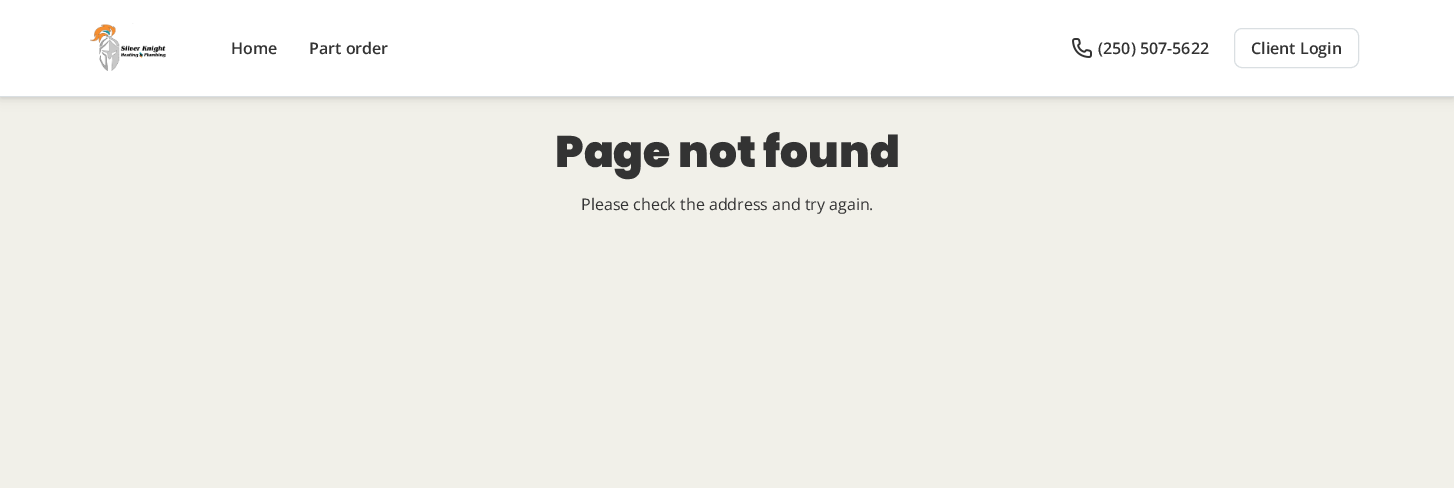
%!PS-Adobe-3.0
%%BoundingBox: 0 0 1454 488
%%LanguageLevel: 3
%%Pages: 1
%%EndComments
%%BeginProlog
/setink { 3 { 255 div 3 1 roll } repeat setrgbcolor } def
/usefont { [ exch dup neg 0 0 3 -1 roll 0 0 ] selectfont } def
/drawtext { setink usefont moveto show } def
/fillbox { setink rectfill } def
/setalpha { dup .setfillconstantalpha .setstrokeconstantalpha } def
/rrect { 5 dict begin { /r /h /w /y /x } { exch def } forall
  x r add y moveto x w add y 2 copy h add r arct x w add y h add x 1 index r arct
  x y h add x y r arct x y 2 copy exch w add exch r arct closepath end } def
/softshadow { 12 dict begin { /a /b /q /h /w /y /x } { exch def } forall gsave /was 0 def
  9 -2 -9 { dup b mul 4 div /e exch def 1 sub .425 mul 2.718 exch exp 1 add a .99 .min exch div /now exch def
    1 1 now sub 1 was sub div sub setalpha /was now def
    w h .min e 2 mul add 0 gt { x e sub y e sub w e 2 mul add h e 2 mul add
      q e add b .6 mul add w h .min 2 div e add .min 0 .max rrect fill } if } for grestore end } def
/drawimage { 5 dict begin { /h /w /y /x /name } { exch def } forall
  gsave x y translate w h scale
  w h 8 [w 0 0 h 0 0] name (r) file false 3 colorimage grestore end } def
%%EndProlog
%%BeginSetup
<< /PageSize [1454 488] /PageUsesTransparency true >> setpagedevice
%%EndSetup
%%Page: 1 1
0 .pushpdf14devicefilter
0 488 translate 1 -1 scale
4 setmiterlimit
0 0 1454 488 241 240 233 fillbox
0 0 0 setink
0 4 1454 97 0 6 0.05 softshadow
0 1 1454 97 0 2 0.1 softshadow
0 0 1454 96 255 255 255 fillbox
0 96 1454 1 218 223 226 fillbox
(assets/img1.rgb) 90 23 76 48 drawimage
(Home) 231 54 /OpenSans-SemiBold 16 51 51 51 drawtext
(Part order) 309 54 /OpenSans-SemiBold 16 51 51 51 drawtext
(assets/img2.rgb) 1072 38 20 20 drawimage
(\(250\) 507-5622) 1098 54 /OpenSans-SemiBold 16 51 51 51 drawtext
218 223 226 setink
1234.5 28.5 124 39 7.5 rrect stroke
(Client Login) 1251 54 /OpenSans-SemiBold 16 51 51 51 drawtext
(Page not found) 555 167 /Poppins-Black 44 51 51 51 drawtext
(Please check the address and try again.) 581 210 /OpenSans-Regular 16 51 51 51 drawtext
.poppdf14devicefilter showpage
%%EOF
